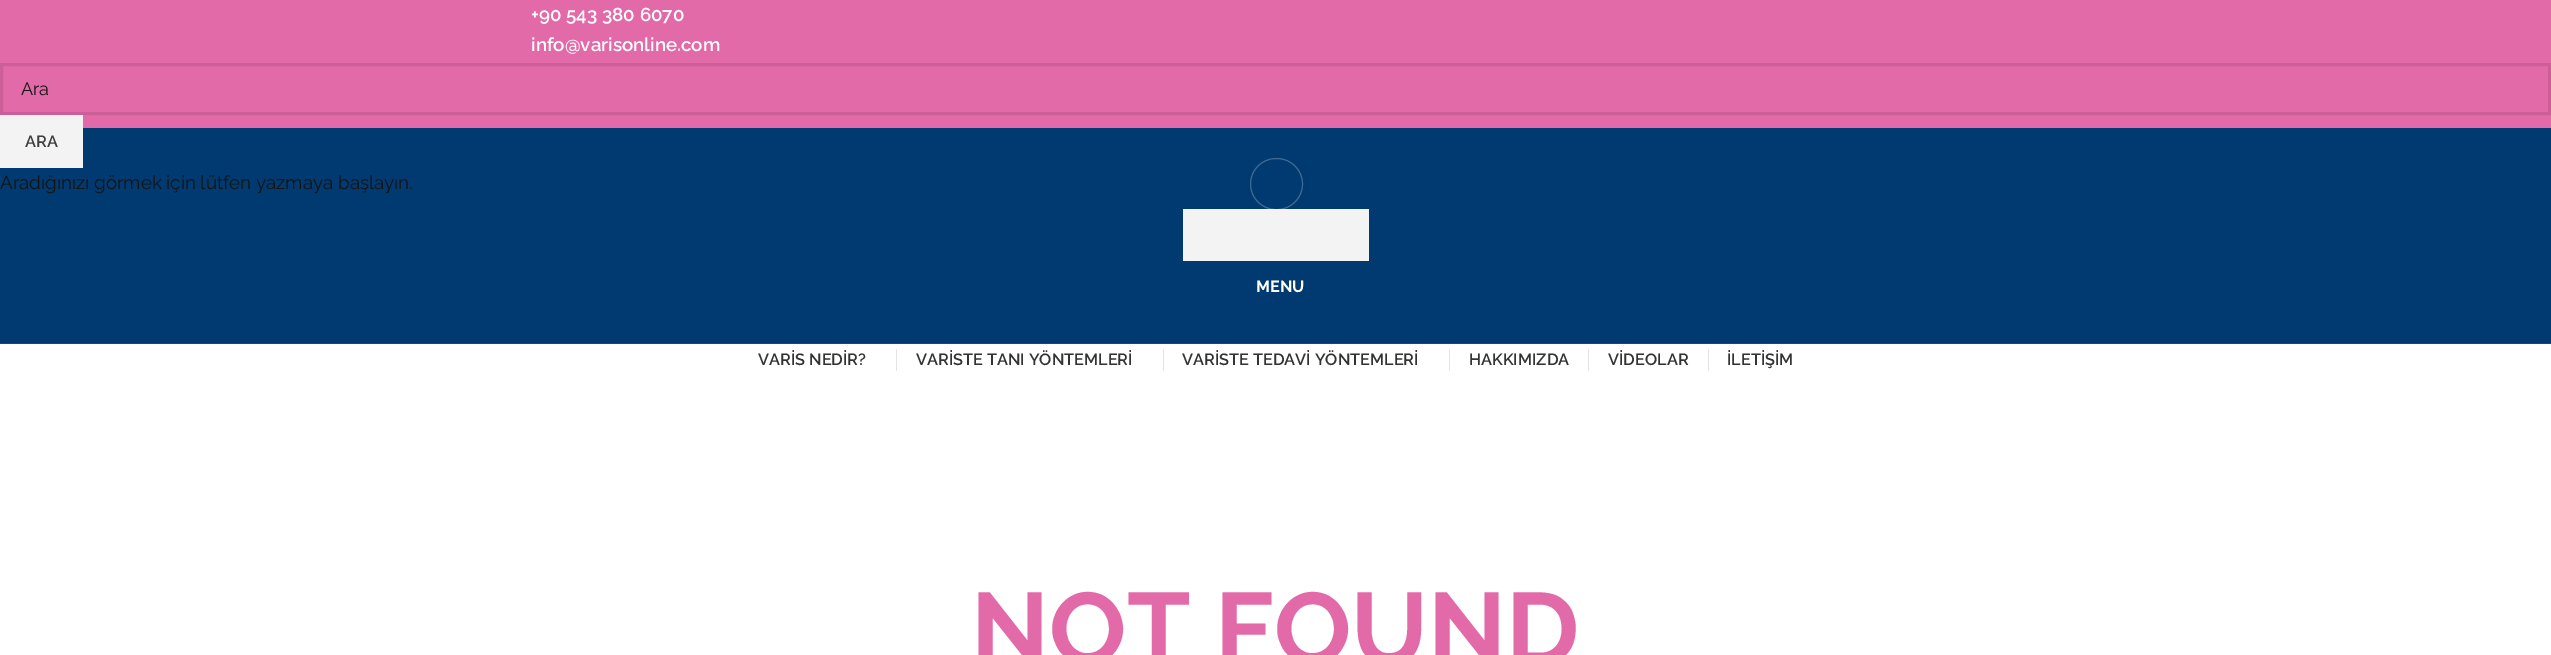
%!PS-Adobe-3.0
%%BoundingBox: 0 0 2551 655
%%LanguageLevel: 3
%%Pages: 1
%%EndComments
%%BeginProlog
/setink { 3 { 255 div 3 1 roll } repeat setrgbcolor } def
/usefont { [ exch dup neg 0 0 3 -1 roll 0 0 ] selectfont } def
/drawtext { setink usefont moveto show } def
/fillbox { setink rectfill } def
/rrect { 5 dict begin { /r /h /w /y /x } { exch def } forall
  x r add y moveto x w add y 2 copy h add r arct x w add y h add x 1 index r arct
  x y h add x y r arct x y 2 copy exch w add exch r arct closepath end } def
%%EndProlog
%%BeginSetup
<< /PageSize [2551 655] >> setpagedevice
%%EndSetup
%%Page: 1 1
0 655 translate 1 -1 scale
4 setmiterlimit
0 0 2551 655 255 255 255 fillbox
0 0 2551 128 227 106 169 fillbox
204 95 152 setink
3 setlinewidth
1.5 64.5 2548 49 rectstroke
(Ara) 21 95 /Raleway-Regular 18 20 20 20 drawtext
0 128 2551 215 0 58 112 fillbox
0 115 83 53 243 243 243 fillbox
(ARA) 25 147 /Raleway-SemiBold 16.25 62 62 62 drawtext
(Aradığınızı görmek için lütfen yazmaya başlayın.) 0 189 /Raleway-Regular 18.75 20 20 20 drawtext
(+90 543 380 6070) 531 21 /Raleway-SemiBold 18.75 255 255 255 drawtext
(info@varisonline.com) 531 51 /Raleway-SemiBold 18.75 255 255 255 drawtext
0 343 2551 1 26 72 115 fillbox
64 107 148 setink
1 setlinewidth
1250.5 158.5 52 51 25.5 rrect stroke
1183 209 186 52 243 243 243 fillbox
(MENU) 1256 292 /Raleway-Bold 16.25 255 255 255 drawtext
(VARİS NEDİR?) 758 365 /Raleway-SemiBold 16.25 51 51 51 drawtext
896 349 1 22 228 228 228 fillbox
(VARİSTE TANI YÖNTEMLERİ) 916 365 /Raleway-SemiBold 16.25 51 51 51 drawtext
1163 349 1 22 228 228 228 fillbox
(VARİSTE TEDAVİ YÖNTEMLERİ) 1182 365 /Raleway-SemiBold 16.25 51 51 51 drawtext
1449 349 1 22 228 228 228 fillbox
(HAKKIMIZDA) 1469 365 /Raleway-SemiBold 16.25 51 51 51 drawtext
1588 349 1 22 228 228 228 fillbox
(VİDEOLAR) 1608 365 /Raleway-SemiBold 16.25 51 51 51 drawtext
1708 349 1 22 228 228 228 fillbox
(İLETİŞİM) 1727 365 /Raleway-SemiBold 16.25 51 51 51 drawtext
(NOT FOUND) 971 665 /Raleway-Bold 102.5 227 106 169 drawtext
showpage
%%EOF
